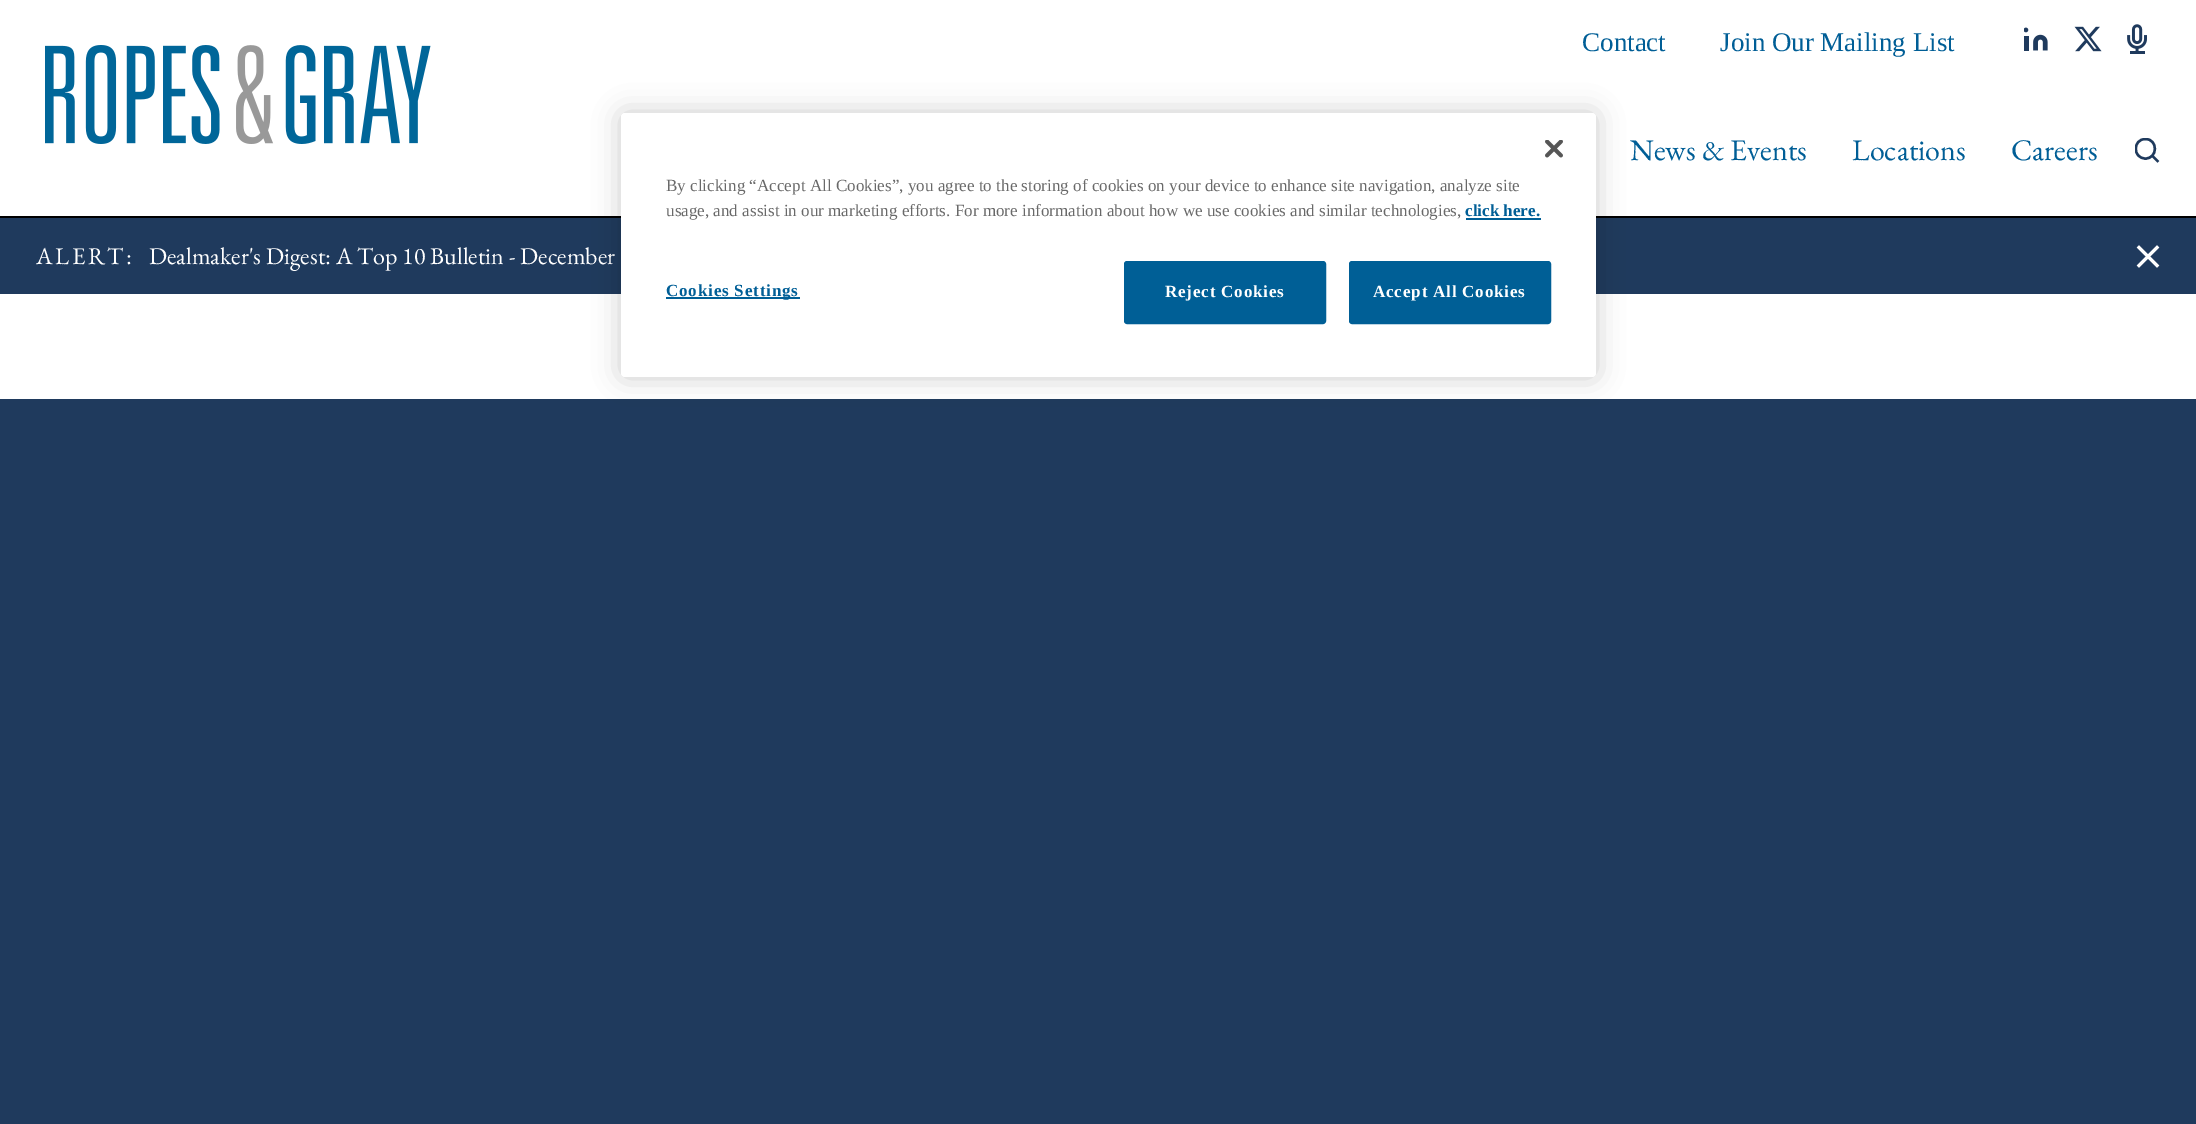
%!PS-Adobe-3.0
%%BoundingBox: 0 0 2196 1124
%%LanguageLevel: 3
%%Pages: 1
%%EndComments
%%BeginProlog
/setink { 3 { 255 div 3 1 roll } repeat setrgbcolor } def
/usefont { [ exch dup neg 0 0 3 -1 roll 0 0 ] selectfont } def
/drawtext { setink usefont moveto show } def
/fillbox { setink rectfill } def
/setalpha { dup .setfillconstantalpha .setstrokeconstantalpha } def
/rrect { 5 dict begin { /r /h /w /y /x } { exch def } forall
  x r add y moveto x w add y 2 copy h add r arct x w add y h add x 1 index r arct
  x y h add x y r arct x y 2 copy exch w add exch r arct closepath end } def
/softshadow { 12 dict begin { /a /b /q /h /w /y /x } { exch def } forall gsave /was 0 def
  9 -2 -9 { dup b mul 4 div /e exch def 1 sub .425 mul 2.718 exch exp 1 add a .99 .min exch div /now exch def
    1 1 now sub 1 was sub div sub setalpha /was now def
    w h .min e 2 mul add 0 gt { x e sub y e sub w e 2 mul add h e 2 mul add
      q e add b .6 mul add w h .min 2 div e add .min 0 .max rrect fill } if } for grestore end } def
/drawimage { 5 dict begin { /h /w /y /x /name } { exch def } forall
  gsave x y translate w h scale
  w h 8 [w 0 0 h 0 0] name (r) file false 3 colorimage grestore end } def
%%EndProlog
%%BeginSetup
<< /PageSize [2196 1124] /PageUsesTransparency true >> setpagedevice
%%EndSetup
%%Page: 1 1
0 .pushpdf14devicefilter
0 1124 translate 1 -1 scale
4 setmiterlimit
0 0 2196 1124 255 255 255 fillbox
0 216 2196 2 0 0 0 fillbox
(assets/img1.rgb) 45 45 386 99 drawimage
(Contact) 1582 51 /LiberationSerif-Regular 27 0 94 150 drawtext
(Join Our Mailing List) 1720 51 /LiberationSerif-Regular 27 0 94 150 drawtext
(assets/img2.rgb) 2024 27 24 24 drawimage
(assets/img3.rgb) 2074 26 28 26 drawimage
(assets/img4.rgb) 2127 24 20 30 drawimage
(News & Events) 1630 160 /EBGaramond-Regular 30 0 94 150 drawtext
(Locations) 1852 160 /EBGaramond-Regular 30 0 94 150 drawtext
(Careers) 2011 160 /EBGaramond-Regular 30 0 94 150 drawtext
gsave
2135 138 25 26 rectclip
31 58 93 setink
2.4 setlinewidth
1 setlinecap
1 setlinejoin
2145.5 158.5 moveto 2158 158.5 2158 139 2145.5 139 curveto 2132.5 139 2132.5 158.5 2145.5 158.5 curveto closepath stroke
grestore
31 58 93 setink
2.4 setlinewidth
2 setlinecap
1 setlinejoin
2157.5 161 moveto 2152.5 156 lineto stroke
0 218 2196 76 31 58 93 fillbox
/EBGaramond-Regular 24 usefont
255 255 255 setink
36 264 moveto 2.5 0 (ALERT:) ashow
(Dealmaker's Digest: A Top 10 Bulletin - December) 149 264 /EBGaramond-Regular 24 255 255 255 drawtext
3 setlinewidth
2157 247.5 moveto 2139 265.5 lineto 2139 247.5 moveto 2157 265.5 lineto stroke
0 399 2196 725 31 58 93 fillbox
0 0 0 setink
621 113 975 264 4 13.5 0.2 softshadow
255 255 255 setink
621 113 975 264 4 rrect fill
(assets/img5.rgb) 1545 140 18 18 drawimage
(By clicking “Accept All Cookies”, you agree to the storing of cookies on your device to enhance site navigation, analyze site) 666 191 /LiberationSerif-Regular 17.07 105 105 105 drawtext
(usage, and assist in our marketing efforts. For more information about how we use cookies and similar technologies,) 666 216 /LiberationSerif-Regular 17.07 105 105 105 drawtext
(click here.) 1465 216 /LiberationSerif-Bold 17.07 0 94 150 drawtext
1466 218 75 2 0 95 150 fillbox
666 297 134 2 0 95 150 fillbox
0 94 150 setink
666 296 moveto 0.8 0 (Cookies Settings) ashow
0 95 150 setink
1125 262 200 61 2 rrect gsave fill grestore
2 setlinewidth
0 setlinecap
0 setlinejoin
stroke
255 255 255 setink
1165 297 moveto 0.8 0 (Reject Cookies) ashow
0 95 150 setink
1350 262 200 61 2 rrect gsave fill grestore
stroke
255 255 255 setink
1373 297 moveto 0.8 0 (Accept All Cookies) ashow
.poppdf14devicefilter showpage
%%EOF
